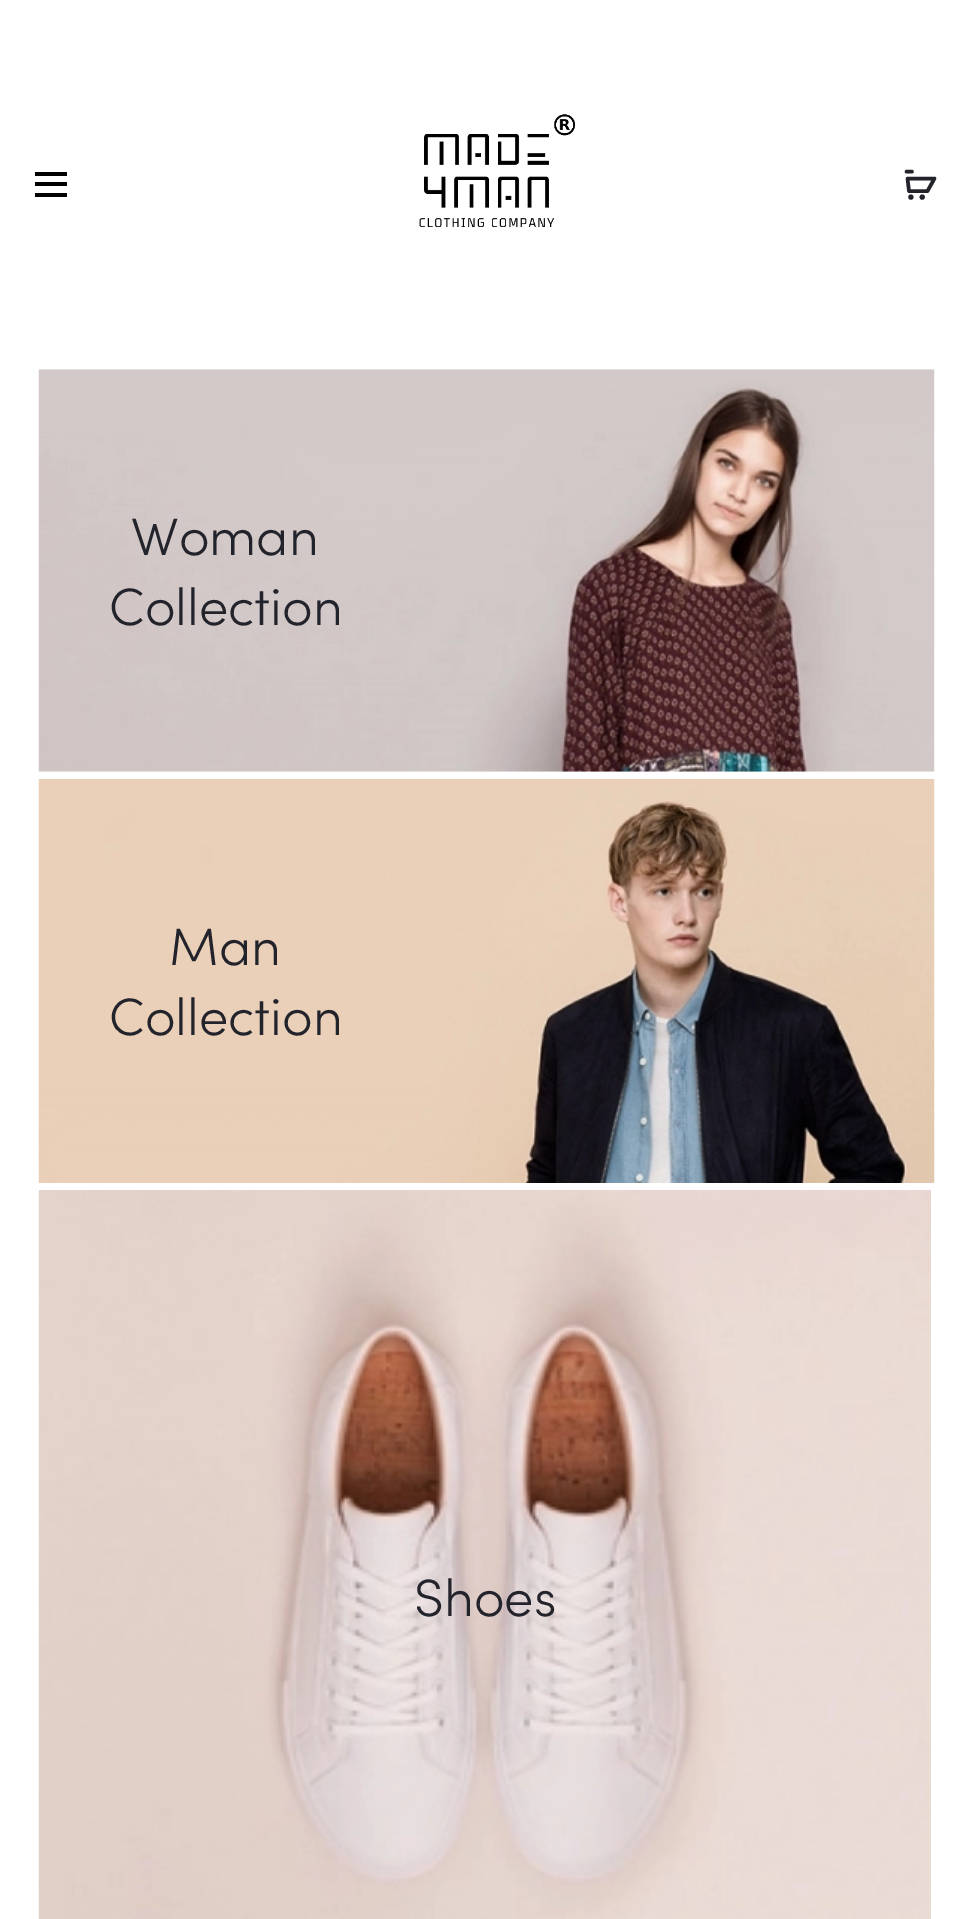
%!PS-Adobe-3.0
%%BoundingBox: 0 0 972 1919
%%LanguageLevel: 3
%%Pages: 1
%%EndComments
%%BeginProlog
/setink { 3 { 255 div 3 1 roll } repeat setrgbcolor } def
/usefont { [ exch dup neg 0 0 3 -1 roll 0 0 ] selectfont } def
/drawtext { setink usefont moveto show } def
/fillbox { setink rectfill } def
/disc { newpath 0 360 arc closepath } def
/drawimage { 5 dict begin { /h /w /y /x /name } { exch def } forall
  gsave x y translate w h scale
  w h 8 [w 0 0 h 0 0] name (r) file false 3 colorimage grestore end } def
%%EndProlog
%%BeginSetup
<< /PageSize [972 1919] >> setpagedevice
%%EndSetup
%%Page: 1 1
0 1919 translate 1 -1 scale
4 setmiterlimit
0 0 972 1919 255 255 255 fillbox
35 182 32 4 0 0 0 fillbox
35 172 32 4 0 0 0 fillbox
35 193 32 4 0 0 0 fillbox
(assets/img1.rgb) 419 114 156 113 drawimage
35 35 44 setink
3.5 setlinewidth
1 setlinejoin
907.5 178.5 moveto 909 191 lineto 927.5 191 lineto 934.5 178.5 lineto closepath stroke
910.9 197.1 2.6 disc fill
922.2 197.1 2.6 disc fill
1 setlinecap
0 setlinejoin
906.5 171.5 moveto 912 171.5 lineto stroke
(assets/img2.rgb) 38 369 897 403 drawimage
(Woman) 131 555 /Sofia-Light 52.5 35 35 44 drawtext
(Collection) 109 625 /Sofia-Light 52.5 35 35 44 drawtext
(assets/img3.rgb) 38 778 897 405 drawimage
(Man) 169 965 /Sofia-Light 52.5 35 35 44 drawtext
(Collection) 109 1035 /Sofia-Light 52.5 35 35 44 drawtext
(assets/img4.rgb) 38 1190 893 729 drawimage
(Shoes) 414 1616 /Sofia-Light 52.5 35 35 44 drawtext
showpage
%%EOF
